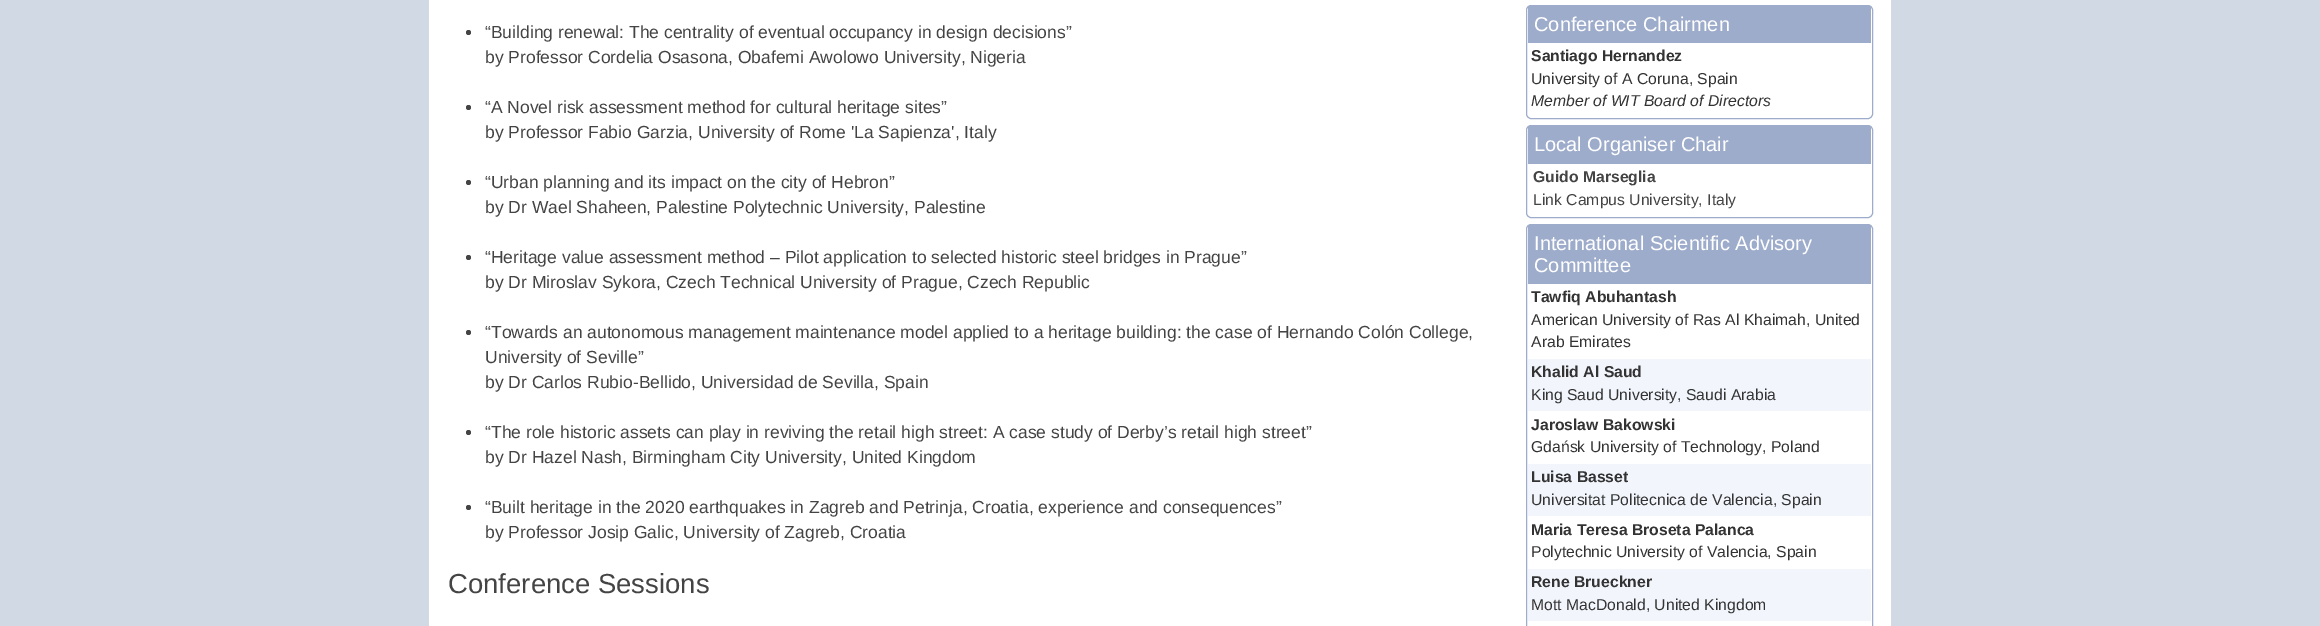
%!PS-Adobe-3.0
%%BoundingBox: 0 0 2320 626
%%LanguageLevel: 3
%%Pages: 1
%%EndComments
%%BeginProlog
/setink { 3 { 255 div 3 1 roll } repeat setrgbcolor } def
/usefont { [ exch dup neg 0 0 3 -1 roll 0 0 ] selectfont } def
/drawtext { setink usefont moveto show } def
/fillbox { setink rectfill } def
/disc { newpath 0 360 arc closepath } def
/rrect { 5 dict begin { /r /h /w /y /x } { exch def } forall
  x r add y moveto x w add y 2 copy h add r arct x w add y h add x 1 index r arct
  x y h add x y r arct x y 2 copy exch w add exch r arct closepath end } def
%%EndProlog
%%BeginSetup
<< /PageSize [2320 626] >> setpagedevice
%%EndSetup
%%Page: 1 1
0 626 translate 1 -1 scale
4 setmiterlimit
0 0 2320 626 208 217 228 fillbox
429 0 1462 626 255 255 255 fillbox
68 68 68 setink
468.5 32.5 2.5 disc fill
(“Building renewal: The centrality of eventual occupancy in design decisions”) 485 38 /LiberationSans-Regular 17.5 68 68 68 drawtext
(by Professor Cordelia Osasona, Obafemi Awolowo University, Nigeria) 485 63 /LiberationSans-Regular 17.5 68 68 68 drawtext
468.5 107.5 2.5 disc fill
(“A Novel risk assessment method for cultural heritage sites”) 485 113 /LiberationSans-Regular 17.5 68 68 68 drawtext
(by Professor Fabio Garzia, University of Rome 'La Sapienza', Italy) 485 138 /LiberationSans-Regular 17.5 68 68 68 drawtext
468.5 182.5 2.5 disc fill
(“Urban planning and its impact on the city of Hebron”) 485 188 /LiberationSans-Regular 17.5 68 68 68 drawtext
(by Dr Wael Shaheen, Palestine Polytechnic University, Palestine) 485 213 /LiberationSans-Regular 17.5 68 68 68 drawtext
468.5 257.5 2.5 disc fill
(“Heritage value assessment method – Pilot application to selected historic steel bridges in Prague”) 485 263 /LiberationSans-Regular 17.5 68 68 68 drawtext
(by Dr Miroslav Sykora, Czech Technical University of Prague, Czech Republic) 485 288 /LiberationSans-Regular 17.5 68 68 68 drawtext
468.5 332.5 2.5 disc fill
(“Towards an autonomous management maintenance model applied to a heritage building: the case of Hernando Colón College,) 485 338 /LiberationSans-Regular 17.5 68 68 68 drawtext
(University of Seville”) 485 363 /LiberationSans-Regular 17.5 68 68 68 drawtext
(by Dr Carlos Rubio-Bellido, Universidad de Sevilla, Spain) 485 388 /LiberationSans-Regular 17.5 68 68 68 drawtext
468.5 432.5 2.5 disc fill
(“The role historic assets can play in reviving the retail high street: A case study of Derby’s retail high street”) 485 438 /LiberationSans-Regular 17.5 68 68 68 drawtext
(by Dr Hazel Nash, Birmingham City University, United Kingdom) 485 463 /LiberationSans-Regular 17.5 68 68 68 drawtext
468.5 507.5 2.5 disc fill
(“Built heritage in the 2020 earthquakes in Zagreb and Petrinja, Croatia, experience and consequences”) 485 513 /LiberationSans-Regular 17.5 68 68 68 drawtext
(by Professor Josip Galic, University of Zagreb, Croatia) 485 538 /LiberationSans-Regular 17.5 68 68 68 drawtext
(Conference Sessions) 448 593 /LiberationSans-Regular 27.5 68 68 68 drawtext
158 172 204 setink
1526.5 5.5 346 113 4.5 rrect stroke
1528 6 343 37 158 172 204 fillbox
(Conference Chairmen) 1534 31 /LiberationSans-Regular 20 255 255 255 drawtext
(Santiago Hernandez) 1531 61 /LiberationSans-Bold 15.75 51 51 51 drawtext
(University of A Coruna, Spain) 1531 84 /LiberationSans-Regular 15.75 51 51 51 drawtext
(Member of WIT Board of Directors) 1531 106 /LiberationSans-Italic 15.75 51 51 51 drawtext
158 172 204 setink
1526.5 125.5 346 92 4.5 rrect stroke
1528 126 343 38 158 172 204 fillbox
(Local Organiser Chair) 1534 151 /LiberationSans-Regular 20 255 255 255 drawtext
(Guido Marseglia) 1533 182 /LiberationSans-Bold 15.75 68 68 68 drawtext
(Link Campus University, Italy) 1533 205 /LiberationSans-Regular 15.75 68 68 68 drawtext
158 172 204 setink
1526.5 224.5 346 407 4.5 rrect stroke
1528 225 343 59 158 172 204 fillbox
(International Scientific Advisory) 1534 250 /LiberationSans-Regular 20 255 255 255 drawtext
(Committee) 1534 272 /LiberationSans-Regular 20 255 255 255 drawtext
(Tawfiq Abuhantash) 1531 302 /LiberationSans-Bold 15.75 51 51 51 drawtext
(American University of Ras Al Khaimah, United) 1531 325 /LiberationSans-Regular 15.75 51 51 51 drawtext
(Arab Emirates) 1531 347 /LiberationSans-Regular 15.75 51 51 51 drawtext
1528 359 343 52 242 246 252 fillbox
(Khalid Al Saud) 1531 377 /LiberationSans-Bold 15.75 51 51 51 drawtext
(King Saud University, Saudi Arabia) 1531 400 /LiberationSans-Regular 15.75 51 51 51 drawtext
(Jaroslaw Bakowski) 1531 430 /LiberationSans-Bold 15.75 51 51 51 drawtext
(Gdańsk University of Technology, Poland) 1531 452 /LiberationSans-Regular 15.75 51 51 51 drawtext
1528 464 343 52 242 246 252 fillbox
(Luisa Basset) 1531 482 /LiberationSans-Bold 15.75 51 51 51 drawtext
(Universitat Politecnica de Valencia, Spain) 1531 505 /LiberationSans-Regular 15.75 51 51 51 drawtext
(Maria Teresa Broseta Palanca) 1531 535 /LiberationSans-Bold 15.75 51 51 51 drawtext
(Polytechnic University of Valencia, Spain) 1531 557 /LiberationSans-Regular 15.75 51 51 51 drawtext
1528 569 343 52 242 246 252 fillbox
(Rene Brueckner) 1531 587 /LiberationSans-Bold 15.75 51 51 51 drawtext
(Mott MacDonald, United Kingdom) 1531 610 /LiberationSans-Regular 15.75 51 51 51 drawtext
showpage
%%EOF
